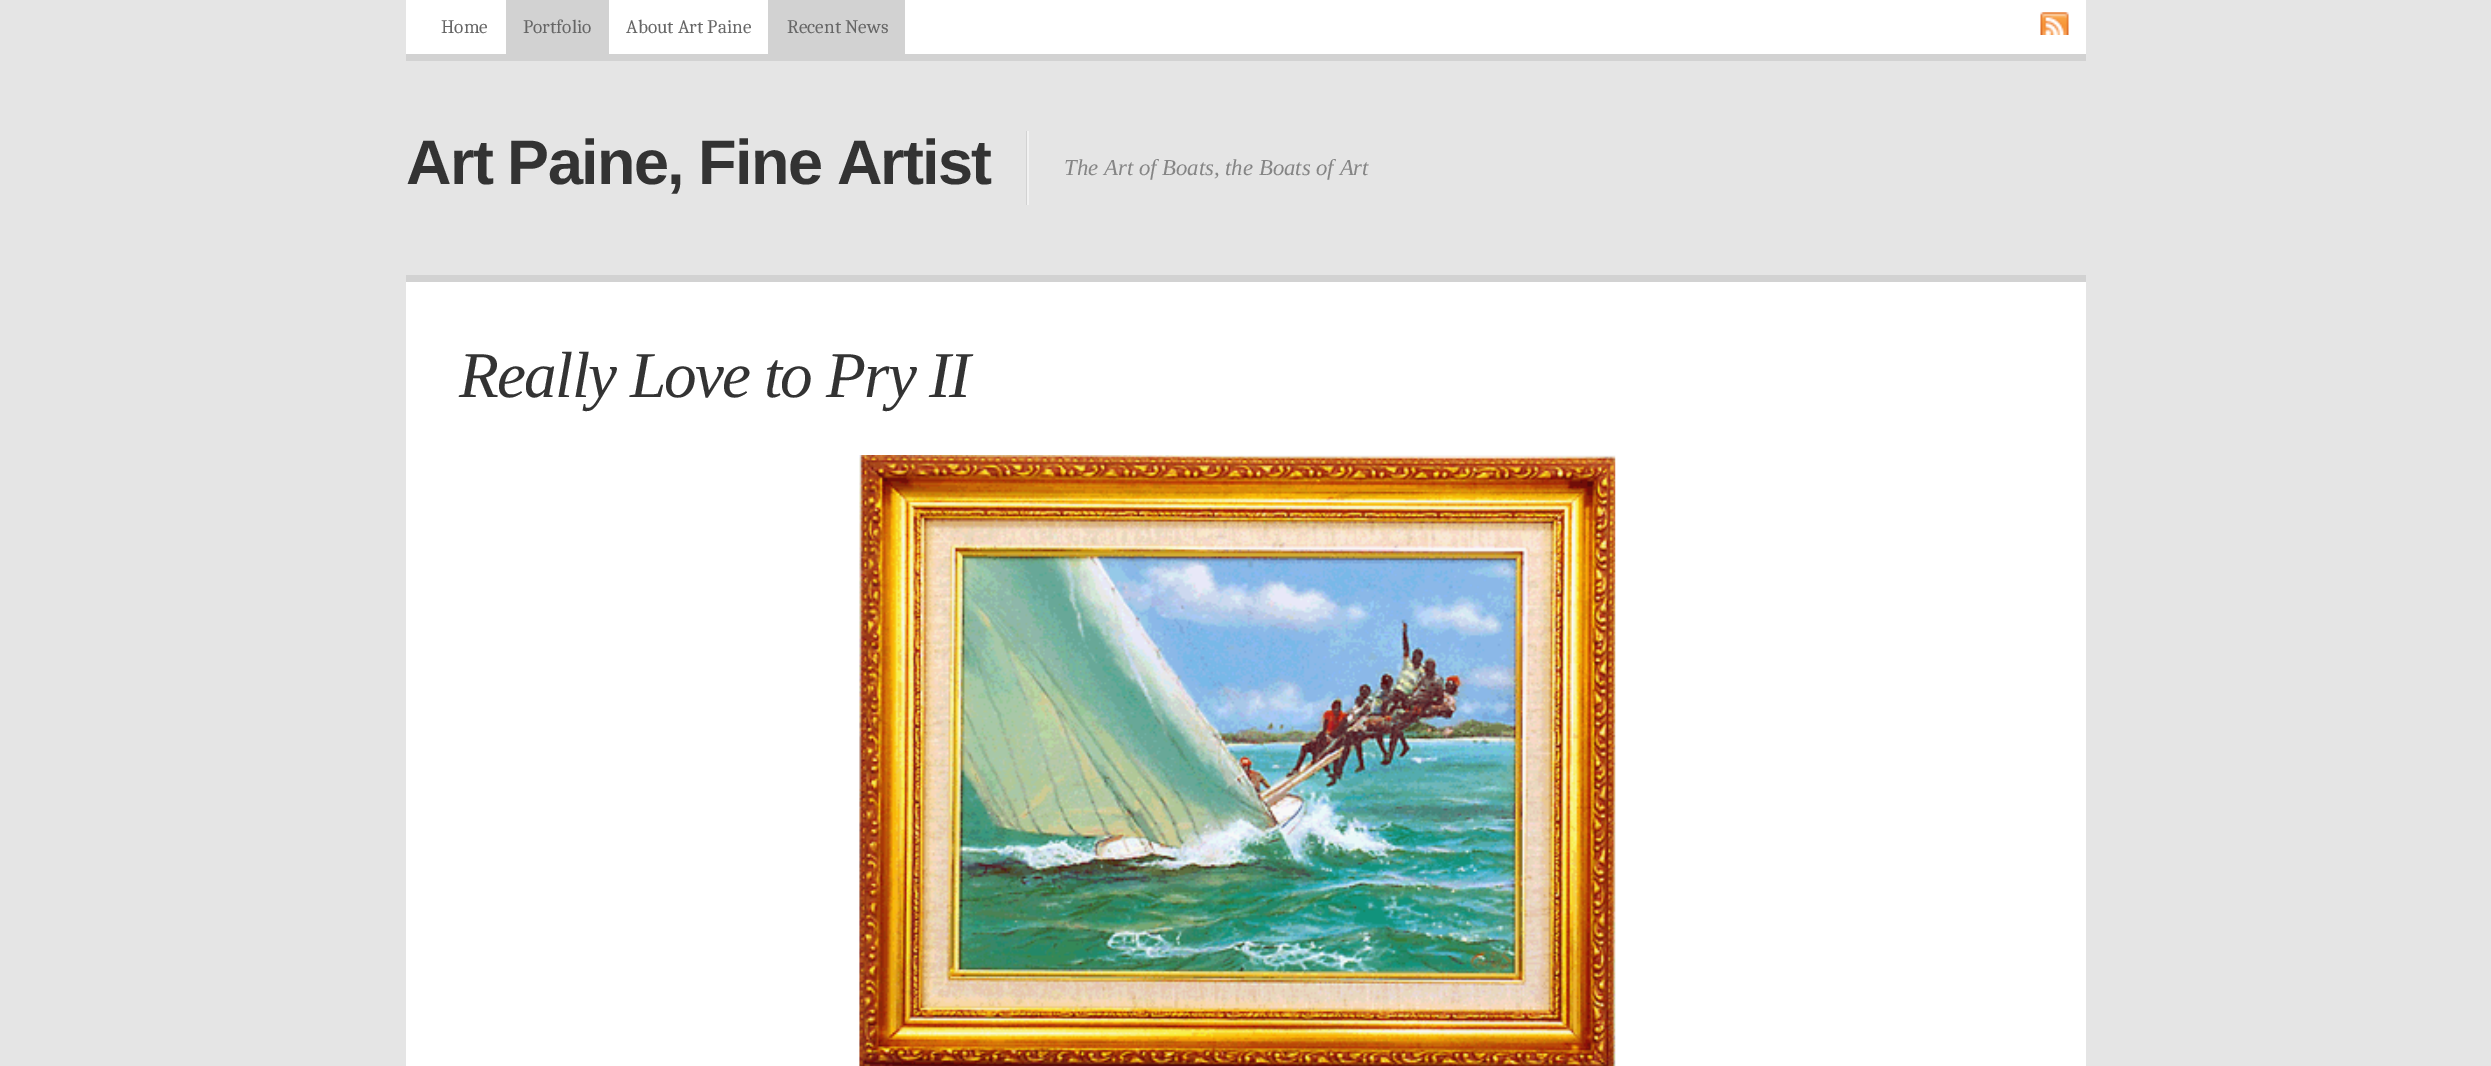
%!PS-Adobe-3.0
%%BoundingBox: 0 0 2491 1066
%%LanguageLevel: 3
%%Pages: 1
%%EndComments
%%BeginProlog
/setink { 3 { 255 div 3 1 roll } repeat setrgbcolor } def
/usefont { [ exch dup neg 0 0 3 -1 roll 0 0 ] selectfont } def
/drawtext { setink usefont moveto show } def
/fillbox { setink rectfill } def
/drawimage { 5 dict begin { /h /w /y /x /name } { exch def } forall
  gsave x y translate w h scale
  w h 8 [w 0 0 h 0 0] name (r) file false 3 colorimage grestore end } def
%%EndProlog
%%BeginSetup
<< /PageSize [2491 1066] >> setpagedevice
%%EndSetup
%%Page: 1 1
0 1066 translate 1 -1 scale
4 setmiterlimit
0 0 2491 1066 229 229 229 fillbox
406 0 1680 54 255 255 255 fillbox
406 54 1680 7 210 210 210 fillbox
(Home) 441 33 /Caladea-Regular 19.25 102 102 102 drawtext
506 0 103 54 210 210 210 fillbox
(Portfolio) 523 33 /Caladea-Regular 19.25 102 102 102 drawtext
(About Art Paine) 626 33 /Caladea-Regular 19.25 102 102 102 drawtext
768 0 137 54 210 210 210 fillbox
(Recent News) 787 33 /Caladea-Regular 19.25 102 102 102 drawtext
(assets/img1.rgb) 2040 12 29 23 drawimage
/LiberationSans-Bold 63 usefont
51 51 51 setink
406 184 moveto -1.75 0 (Art Paine, Fine Artist) ashow
1026 131 1 74 210 210 210 fillbox
1027 131 2 74 242 242 242 fillbox
(The Art of Boats, the Boats of Art) 1064 175 /LiberationSerif-Italic 22.75 133 133 133 drawtext
406 282 1680 784 255 255 255 fillbox
406 275 1680 7 210 210 210 fillbox
/LiberationSerif-Italic 65.25 usefont
51 51 51 setink
459 397 moveto -1.75 0 (Really Love to Pry II) ashow
(assets/img2.rgb) 859 455 757 611 drawimage
showpage
%%EOF
